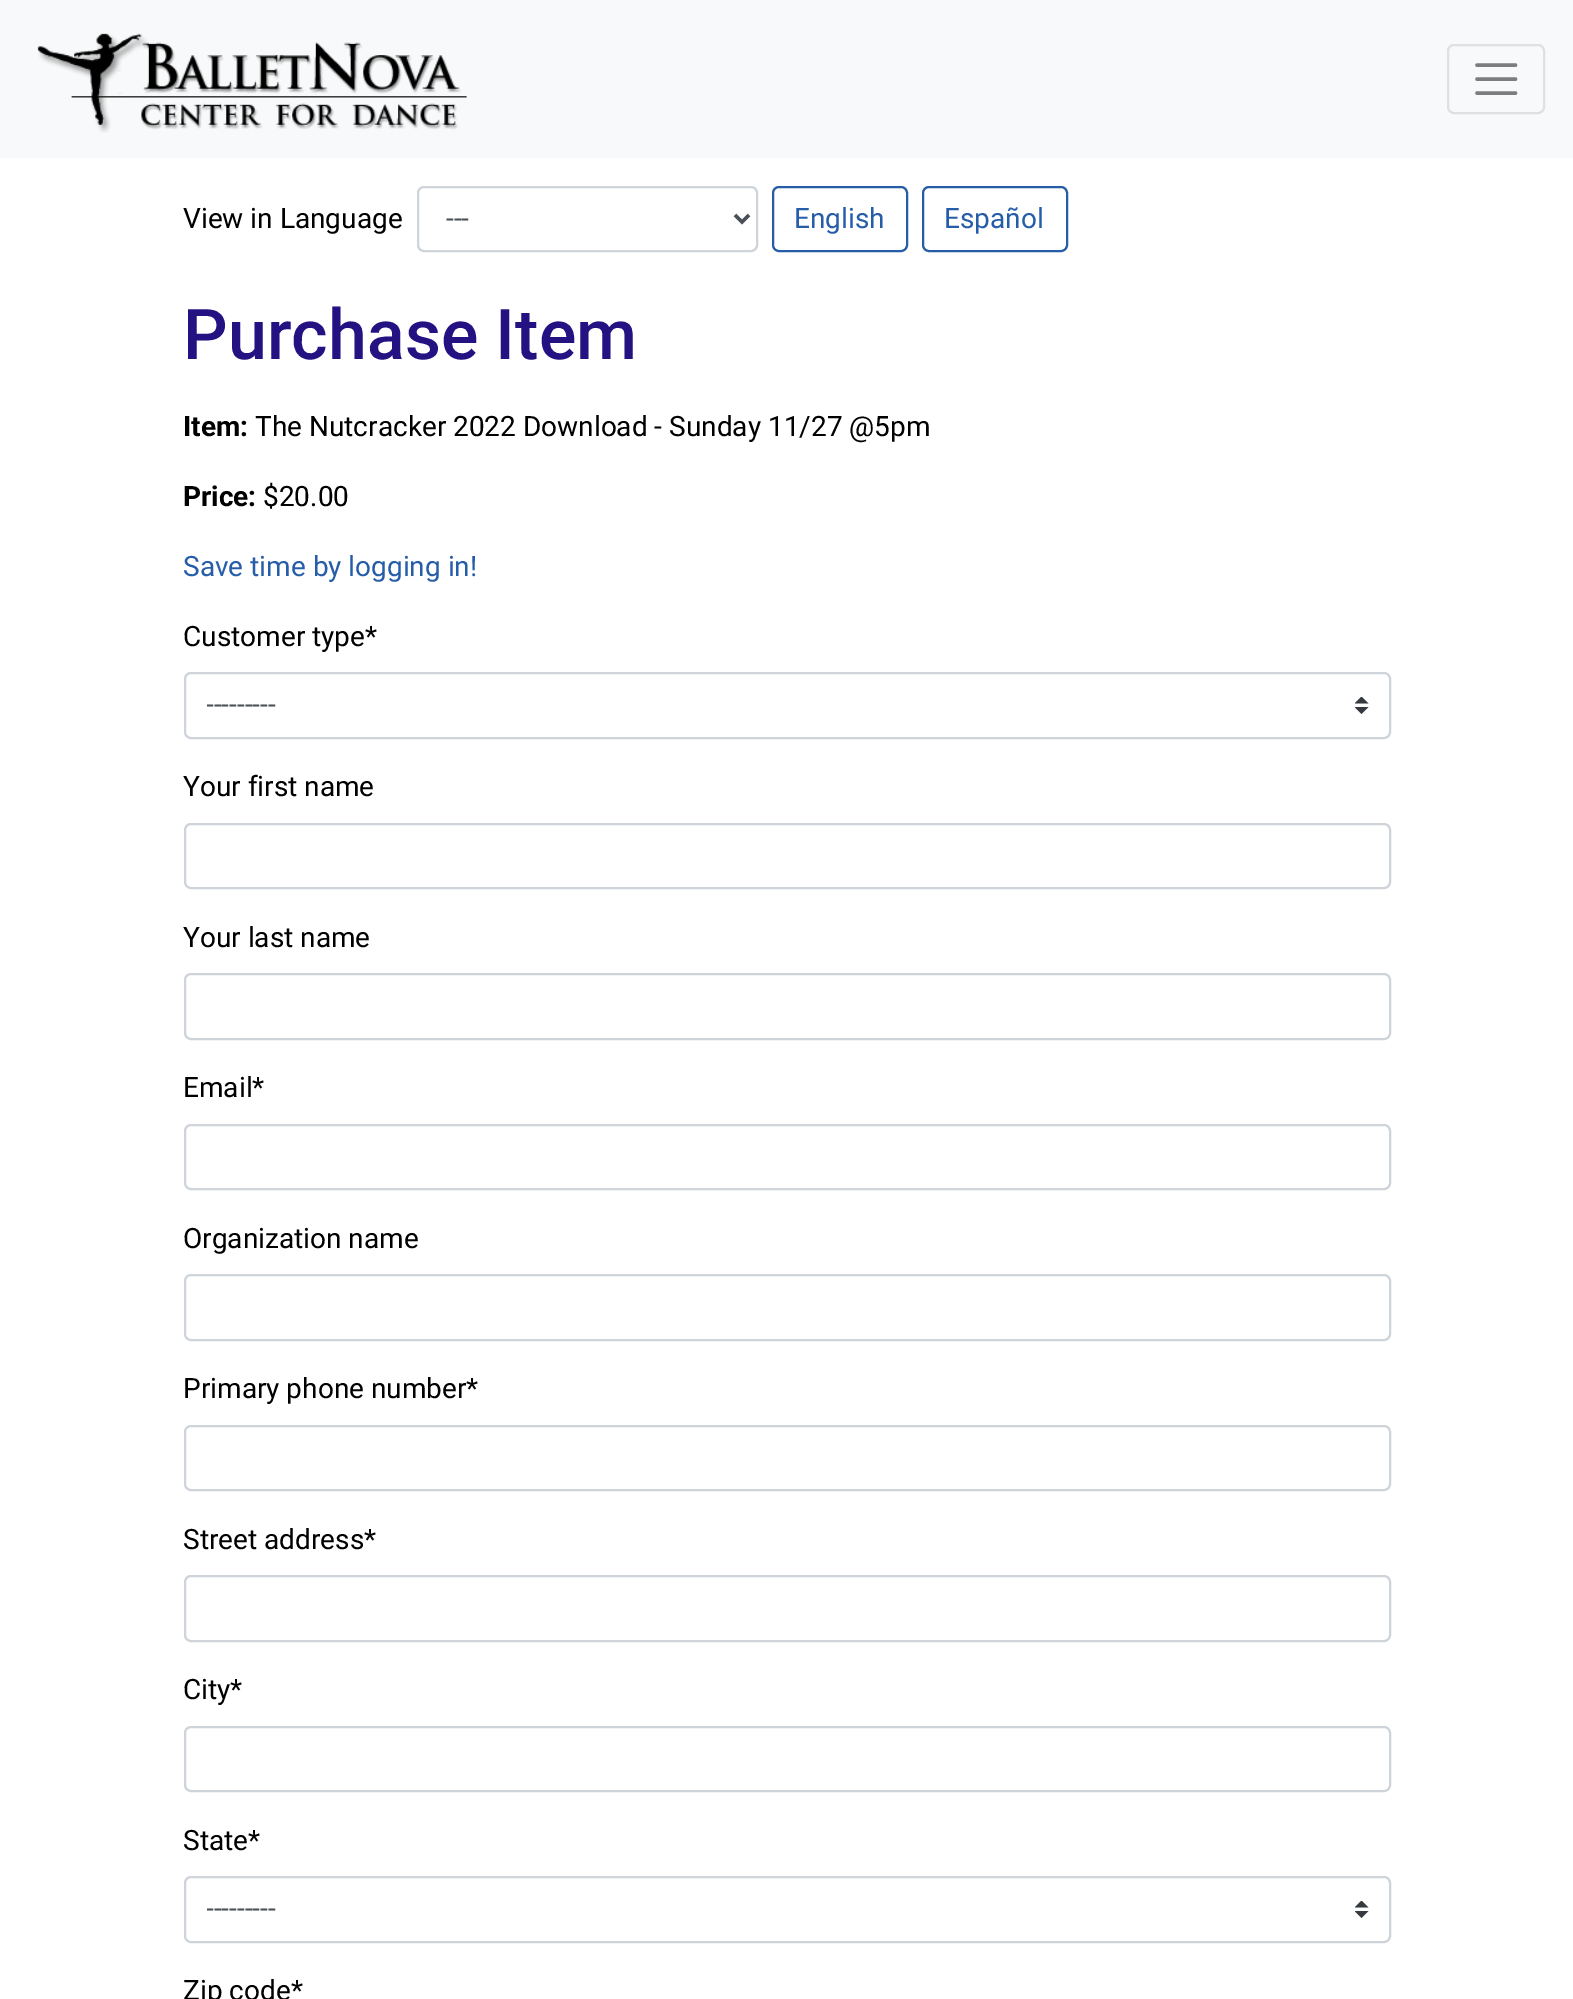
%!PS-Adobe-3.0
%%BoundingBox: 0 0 1573 1999
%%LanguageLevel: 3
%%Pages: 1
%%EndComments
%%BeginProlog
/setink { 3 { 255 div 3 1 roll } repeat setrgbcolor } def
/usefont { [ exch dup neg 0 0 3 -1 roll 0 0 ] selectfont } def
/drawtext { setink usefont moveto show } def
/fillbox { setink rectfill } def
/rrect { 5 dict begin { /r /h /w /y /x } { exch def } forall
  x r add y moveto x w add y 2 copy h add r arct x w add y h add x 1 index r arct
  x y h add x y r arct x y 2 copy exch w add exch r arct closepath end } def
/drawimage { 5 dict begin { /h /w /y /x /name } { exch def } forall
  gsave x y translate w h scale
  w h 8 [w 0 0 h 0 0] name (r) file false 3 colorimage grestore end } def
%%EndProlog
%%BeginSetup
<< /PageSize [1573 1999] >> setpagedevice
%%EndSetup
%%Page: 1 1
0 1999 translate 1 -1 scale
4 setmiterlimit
0 0 1573 1999 255 255 255 fillbox
0 0 1573 158 248 249 250 fillbox
(assets/img1.rgb) 37 33 430 100 drawimage
223 224 225 setink
2 setlinewidth
1448 45 96 68 6 rrect stroke
124 125 125 setink
3.5 setlinewidth
1 setlinecap
1477 65 moveto 1515.5 65 lineto 1477 79 moveto 1515.5 79 lineto 1477 93 moveto 1515.5 93 lineto stroke
(View in Language) 183 228 /Roboto-Regular 28 0 0 0 drawtext
206 212 218 setink
2 setlinewidth
0 setlinecap
418 187 339 64 6 rrect stroke
73 80 87 setink
3.5 setlinewidth
735 215 moveto 742 222 lineto 749 215 lineto stroke
(---) 446 228 /Roboto-Regular 28 73 80 87 drawtext
37 93 169 setink
2 setlinewidth
773 187 134 64 6 rrect stroke
(English) 794 228 /Roboto-Regular 28 37 93 169 drawtext
923 187 144 64 6 rrect stroke
(Español) 944 228 /Roboto-Regular 28 37 93 169 drawtext
(Purchase Item) 183 359 /Roboto-Medium 70 36 18 130 drawtext
(Item:) 183 436 /Roboto-Bold 28 0 0 0 drawtext
(The Nutcracker 2022 Download - Sunday 11/27 @5pm) 255 436 /Roboto-Regular 28 0 0 0 drawtext
(Price:) 183 506 /Roboto-Bold 28 0 0 0 drawtext
($20.00) 263 506 /Roboto-Regular 28 0 0 0 drawtext
(Save time by logging in!) 183 576 /Roboto-Regular 28 37 93 169 drawtext
(Customer type*) 183 646 /Roboto-Regular 28 0 0 0 drawtext
gsave
1355 697 14 17 rectclip
52 58 64 setink
1361.5 696.5 moveto 1354.5 703.5 lineto 1368.5 703.5 lineto closepath 1361.5 714 moveto 1354.5 707 lineto 1368.5 707 lineto closepath fill
grestore
206 212 218 setink
185 673 1205 65 6 rrect stroke
gsave
207 684 1134 42 rectclip
(---------) 206 714 /Roboto-Regular 28 73 80 87 drawtext
grestore
(Your first name) 183 796 /Roboto-Regular 28 0 0 0 drawtext
206 212 218 setink
185 824 1205 64 6 rrect stroke
(Your last name) 183 947 /Roboto-Regular 28 0 0 0 drawtext
206 212 218 setink
185 974 1205 65 6 rrect stroke
(Email*) 183 1097 /Roboto-Regular 28 0 0 0 drawtext
206 212 218 setink
185 1125 1205 64 6 rrect stroke
(Organization name) 183 1248 /Roboto-Regular 28 0 0 0 drawtext
206 212 218 setink
185 1275 1205 65 6 rrect stroke
(Primary phone number*) 183 1398 /Roboto-Regular 28 0 0 0 drawtext
206 212 218 setink
185 1426 1205 64 6 rrect stroke
(Street address*) 183 1549 /Roboto-Regular 28 0 0 0 drawtext
206 212 218 setink
185 1576 1205 65 6 rrect stroke
(City*) 183 1699 /Roboto-Regular 28 0 0 0 drawtext
206 212 218 setink
185 1727 1205 64 6 rrect stroke
(State*) 183 1850 /Roboto-Regular 28 0 0 0 drawtext
gsave
1355 1901 14 17 rectclip
52 58 64 setink
1361.5 1900.5 moveto 1354.5 1907.5 lineto 1368.5 1907.5 lineto closepath 1361.5 1918 moveto 1354.5 1911 lineto 1368.5 1911 lineto closepath fill
grestore
206 212 218 setink
185 1877 1205 65 6 rrect stroke
gsave
207 1888 1134 42 rectclip
(---------) 206 1918 /Roboto-Regular 28 73 80 87 drawtext
grestore
(Zip code*) 183 2000 /Roboto-Regular 28 0 0 0 drawtext
showpage
%%EOF
